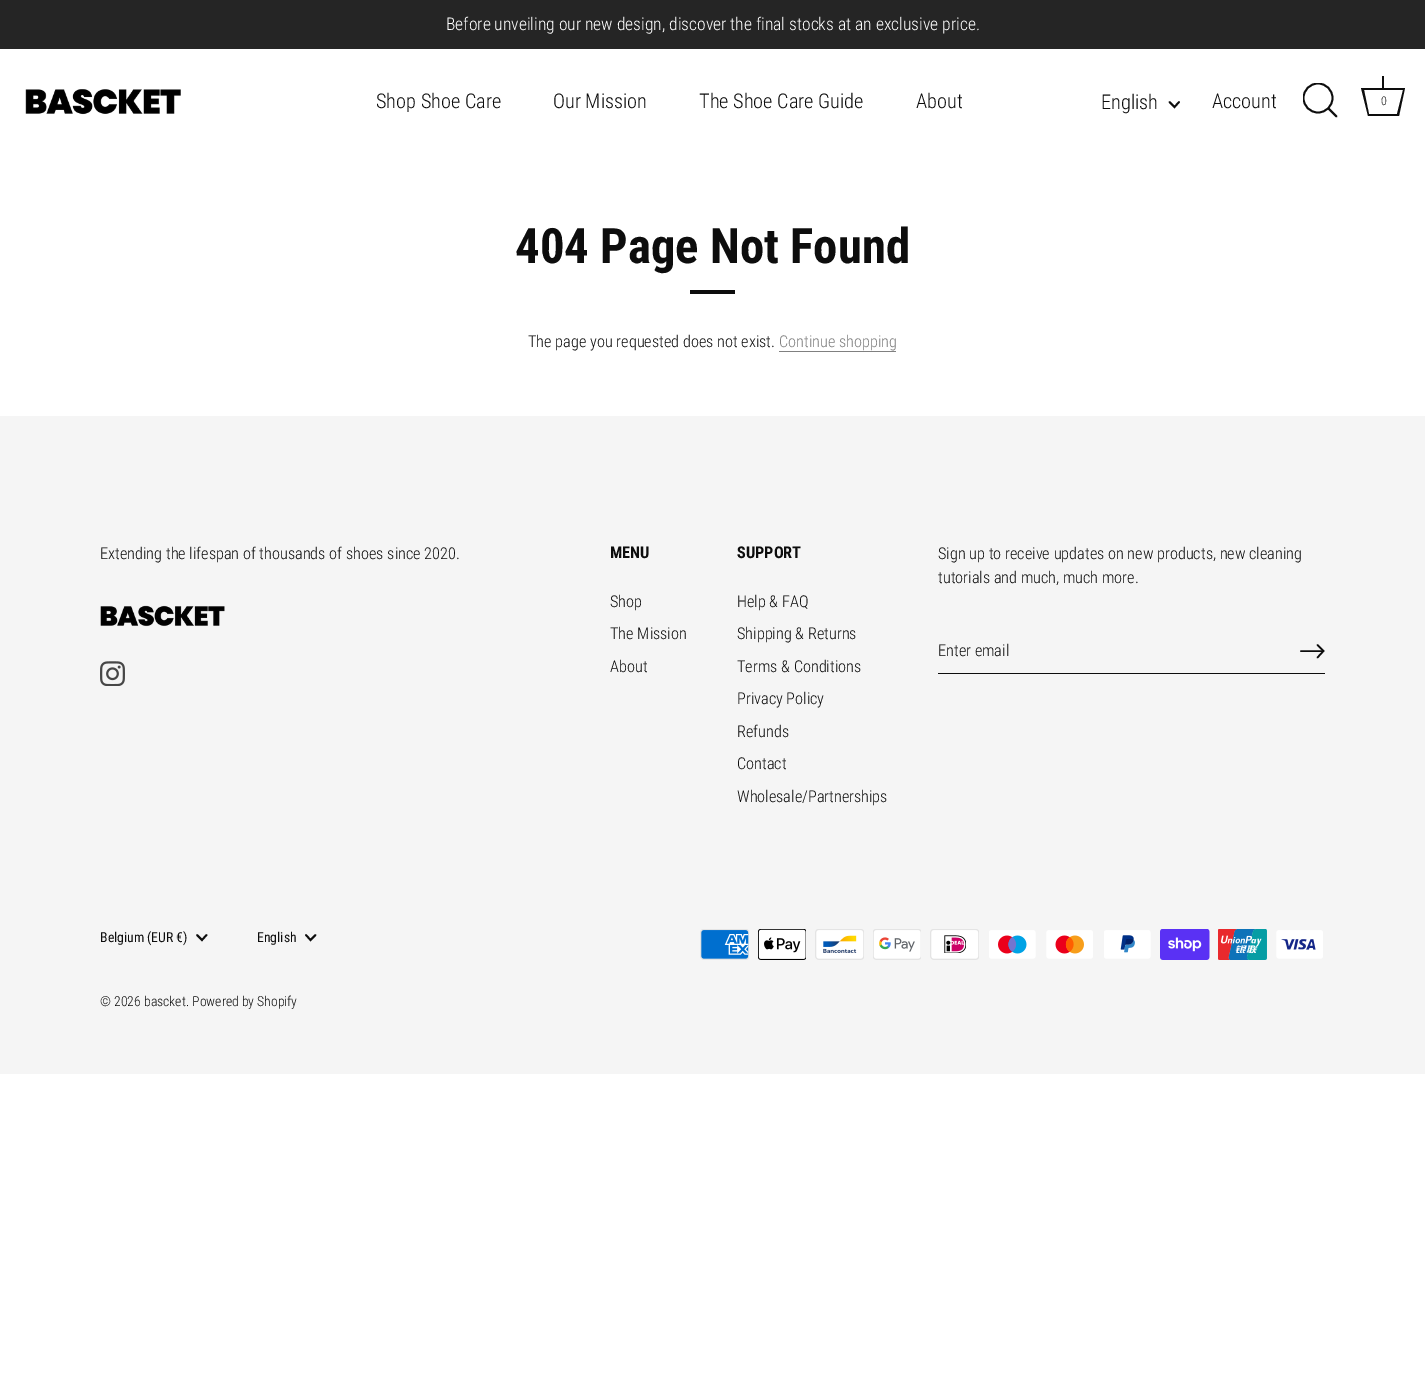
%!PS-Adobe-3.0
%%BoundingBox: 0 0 1425 1375
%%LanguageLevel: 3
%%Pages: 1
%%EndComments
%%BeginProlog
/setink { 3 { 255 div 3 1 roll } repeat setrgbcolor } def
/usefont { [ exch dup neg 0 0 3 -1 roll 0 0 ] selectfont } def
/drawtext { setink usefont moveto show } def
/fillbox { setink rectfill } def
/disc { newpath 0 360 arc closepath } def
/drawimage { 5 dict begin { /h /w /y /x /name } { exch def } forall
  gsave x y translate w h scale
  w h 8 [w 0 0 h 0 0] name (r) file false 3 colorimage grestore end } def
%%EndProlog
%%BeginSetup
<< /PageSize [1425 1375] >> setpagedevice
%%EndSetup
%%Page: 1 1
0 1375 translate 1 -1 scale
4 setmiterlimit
0 0 1425 1375 255 255 255 fillbox
0 0 1425 49 37 37 37 fillbox
(Before unveiling our new design, discover the final stocks at an exclusive price.) 446 30 /RobotoCondensed-Light 17.5 255 255 255 drawtext
(assets/img1.rgb) 25 89 156 26 drawimage
(Shop Shoe Care) 376 108 /RobotoCondensed-Light 20.25 13 13 13 drawtext
(Our Mission) 553 108 /RobotoCondensed-Light 20.25 13 13 13 drawtext
(The Shoe Care Guide) 699 108 /RobotoCondensed-Light 20.25 13 13 13 drawtext
(About) 916 108 /RobotoCondensed-Light 20.25 13 13 13 drawtext
(English) 1101 109 /RobotoCondensed-Light 20.25 13 13 13 drawtext
1.8 setlinewidth
1 setlinecap
1169.5 102 moveto 1174.5 107 lineto 1179 102 lineto stroke
(Account) 1212 108 /RobotoCondensed-Light 20.25 13 13 13 drawtext
gsave
1303 83 36 36 rectclip
0 setlinecap
1318 98 14.5 disc stroke
grestore
1 setlinejoin
1336.5 116.5 moveto 1328.5 108.5 lineto stroke
1382 76 2 12 13 13 13 fillbox
1403 90 moveto 1397 114 lineto 1369 114 lineto 1364 90 lineto 1403 90 lineto 1405 88 moveto 1361 88 lineto 1368 116 lineto 1399 116 lineto closepath fill
(0) 1381 105 /RobotoCondensed-Light 12 13 13 13 drawtext
(404 Page Not Found) 515 263 /RobotoCondensed-Bold 48.75 13 13 13 drawtext
690 290 45 4 13 13 13 fillbox
(The page you requested does not exist.) 528 347 /RobotoCondensed-Light 16.25 13 13 13 drawtext
(Continue shopping) 779 347 /RobotoCondensed-Light 16.25 128 128 128 drawtext
779 351 117 1 128 128 128 fillbox
0 416 1425 658 245 245 245 fillbox
(Extending the lifespan of thousands of shoes since 2020.) 100 559 /RobotoCondensed-Light 16.25 13 13 13 drawtext
(assets/img2.rgb) 100 605 125 22 drawimage
(assets/img3.rgb) 100 661 25 25 drawimage
(MENU) 610 558 /RobotoCondensed-Bold 16.25 13 13 13 drawtext
(Shop) 610 607 /RobotoCondensed-Light 16.25 13 13 13 drawtext
(The Mission) 610 639 /RobotoCondensed-Light 16.25 13 13 13 drawtext
(About) 610 672 /RobotoCondensed-Light 16.25 13 13 13 drawtext
(SUPPORT) 737 558 /RobotoCondensed-Bold 16.25 13 13 13 drawtext
(Help & FAQ) 737 607 /RobotoCondensed-Light 16.25 13 13 13 drawtext
(Shipping & Returns) 737 639 /RobotoCondensed-Light 16.25 13 13 13 drawtext
(Terms & Conditions) 737 672 /RobotoCondensed-Light 16.25 13 13 13 drawtext
(Privacy Policy) 737 704 /RobotoCondensed-Light 16.25 13 13 13 drawtext
(Refunds) 737 737 /RobotoCondensed-Light 16.25 13 13 13 drawtext
(Contact) 737 769 /RobotoCondensed-Light 16.25 13 13 13 drawtext
(Wholesale/Partnerships) 737 802 /RobotoCondensed-Light 16.25 13 13 13 drawtext
(Sign up to receive updates on new products, new cleaning) 938 559 /RobotoCondensed-Light 16.25 13 13 13 drawtext
(tutorials and much, much more.) 938 583 /RobotoCondensed-Light 16.25 13 13 13 drawtext
938 673 387 1 13 13 13 fillbox
(Enter email) 938 656 /RobotoCondensed-Light 16.25 13 13 13 drawtext
1.6 setlinewidth
0 setlinejoin
1317.5 657.5 moveto 1323.5 651 lineto 1317.5 645 lineto stroke
1 setlinejoin
1323 651 moveto 1301 651 lineto stroke
(Belgium \(EUR €\)) 100 942 /RobotoCondensed-Regular 13.75 13 13 13 drawtext
1.8 setlinewidth
0 setlinejoin
197 935 moveto 202 940 lineto 206.5 935 lineto stroke
(English) 257 942 /RobotoCondensed-Regular 13.75 13 13 13 drawtext
306 935 moveto 310.5 940 lineto 315.5 935 lineto stroke
(© 2026 bascket. Powered by Shopify) 100 1006 /RobotoCondensed-Light 13.75 13 13 13 drawtext
(assets/img4.rgb) 700 929 49 31 drawimage
(assets/img5.rgb) 758 929 48 31 drawimage
(assets/img6.rgb) 815 929 49 31 drawimage
(assets/img7.rgb) 873 929 48 31 drawimage
(assets/img8.rgb) 930 929 49 31 drawimage
(assets/img9.rgb) 989 930 47 29 drawimage
(assets/img10.rgb) 1046 930 47 29 drawimage
(assets/img11.rgb) 1104 930 47 29 drawimage
(assets/img12.rgb) 1160 929 50 31 drawimage
(assets/img13.rgb) 1218 929 49 31 drawimage
(assets/img14.rgb) 1276 930 47 29 drawimage
showpage
%%EOF
